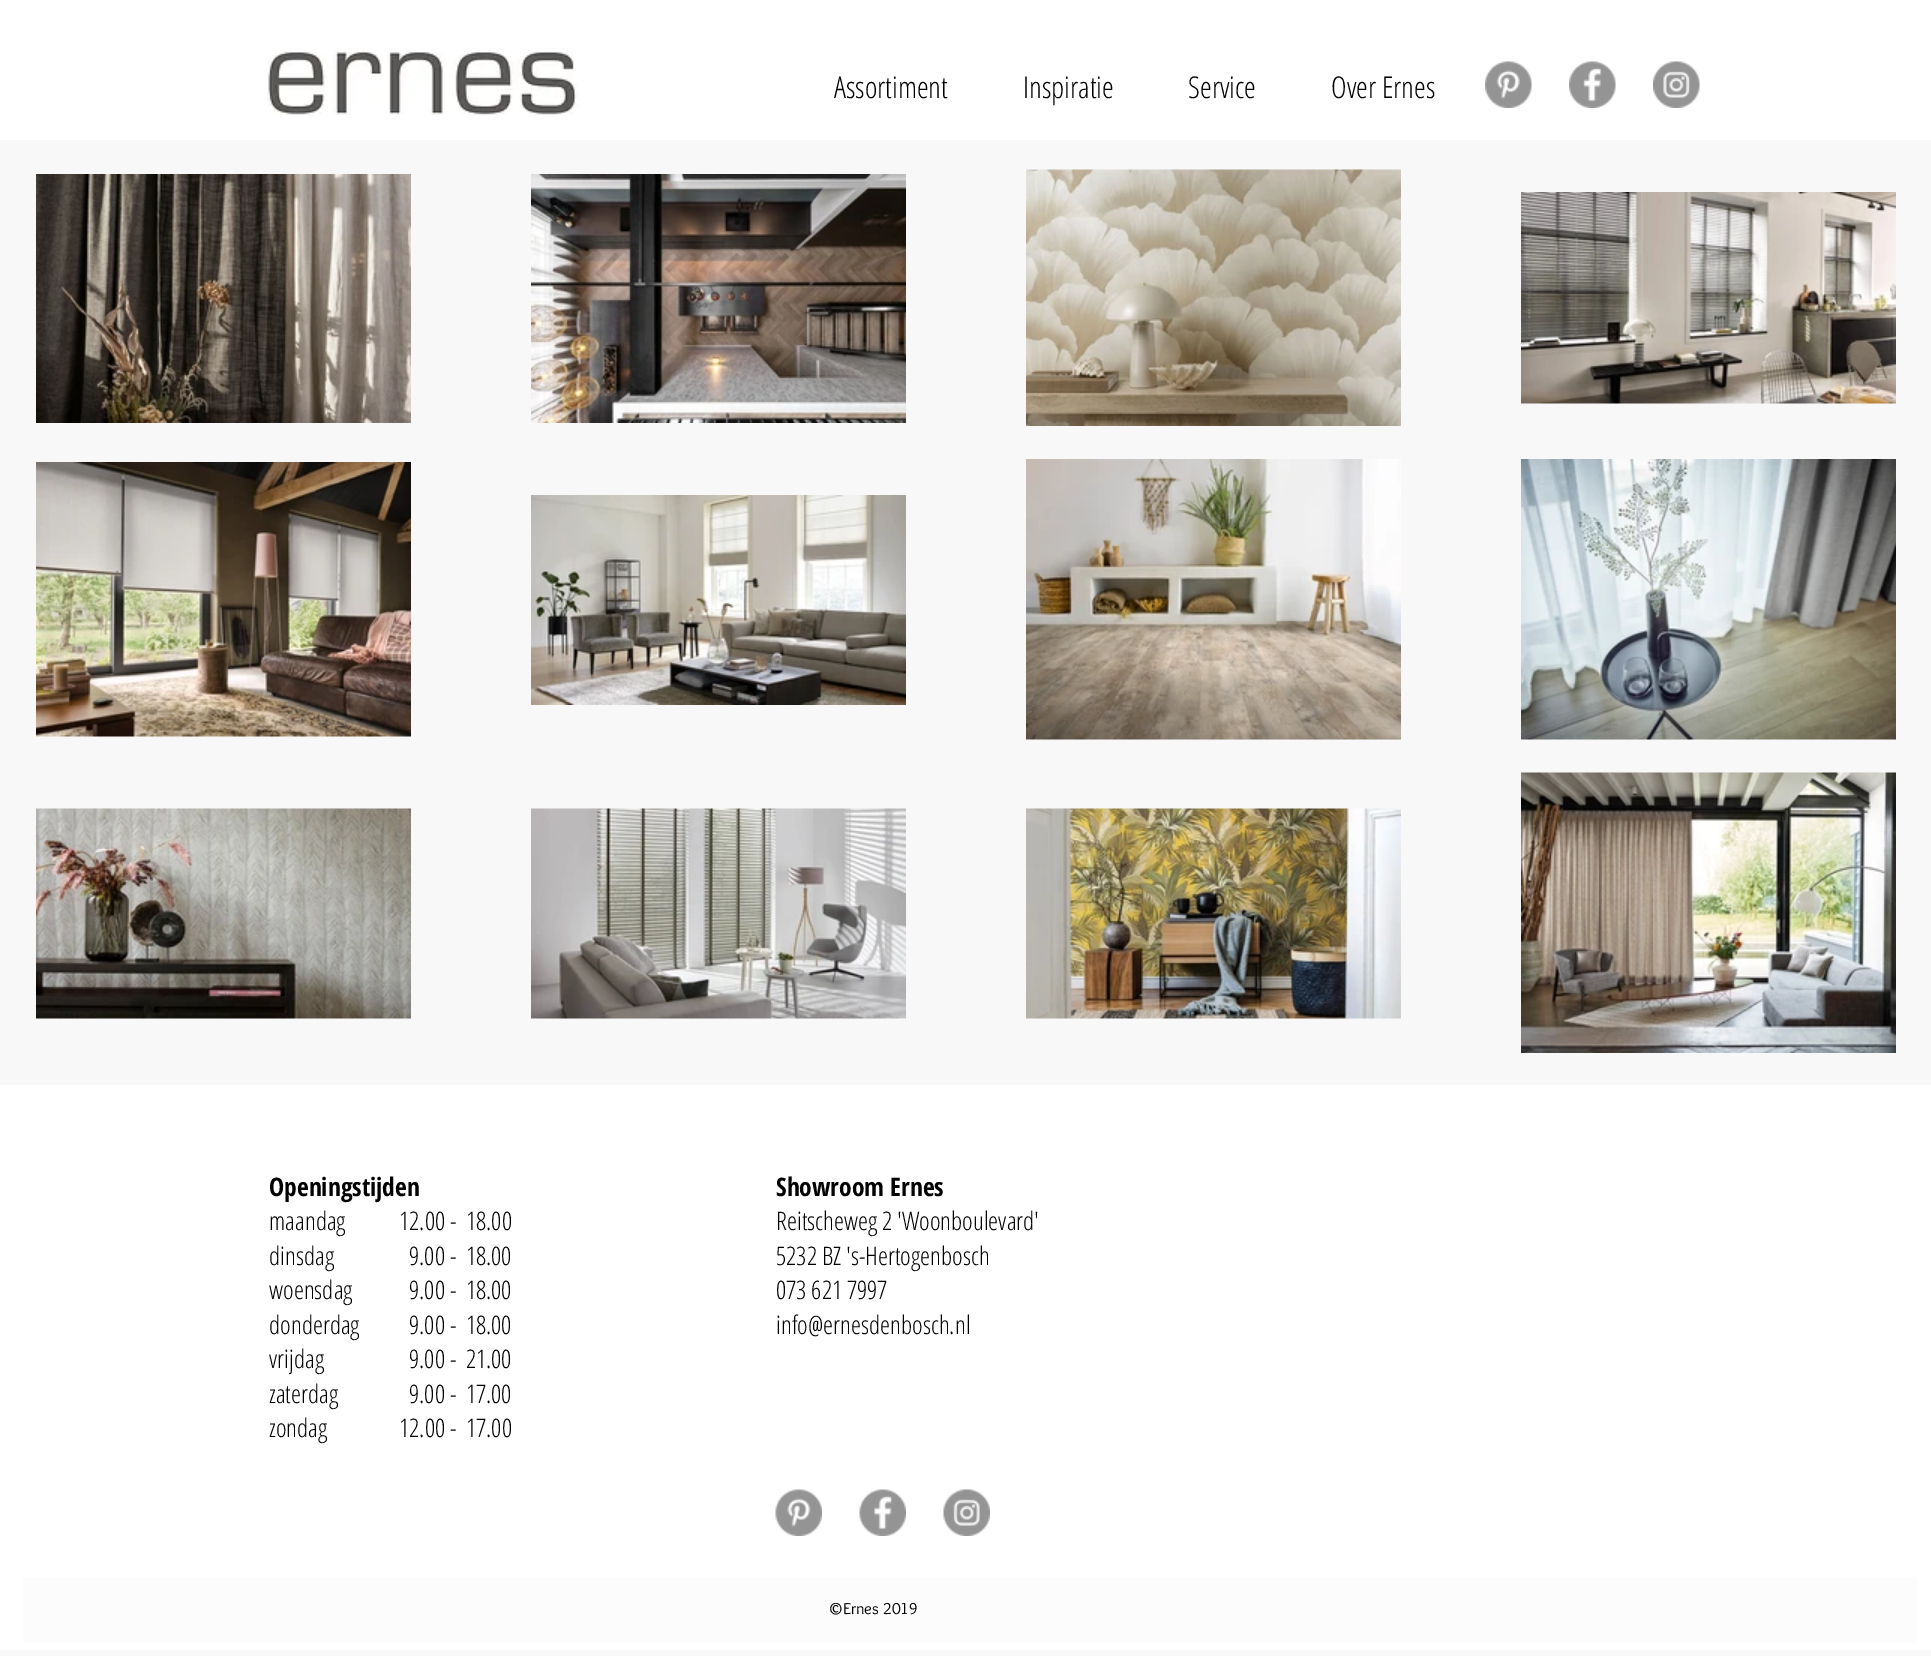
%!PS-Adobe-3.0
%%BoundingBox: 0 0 1931 1656
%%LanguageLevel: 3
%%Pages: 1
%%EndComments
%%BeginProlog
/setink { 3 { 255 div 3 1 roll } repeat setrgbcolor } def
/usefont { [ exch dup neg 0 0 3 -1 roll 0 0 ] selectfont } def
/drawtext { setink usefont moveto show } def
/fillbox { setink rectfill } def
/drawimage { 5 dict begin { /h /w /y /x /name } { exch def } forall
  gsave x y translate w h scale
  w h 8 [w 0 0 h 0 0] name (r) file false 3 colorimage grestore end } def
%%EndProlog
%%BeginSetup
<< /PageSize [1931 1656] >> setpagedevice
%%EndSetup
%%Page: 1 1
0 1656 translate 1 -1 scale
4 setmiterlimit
0 0 1931 1656 248 248 248 fillbox
0 0 1931 140 255 255 255 fillbox
(assets/img1.rgb) 267 48 312 67 drawimage
(Assortiment) 834 98 /OpenSansCondensed-Light 30 0 0 0 drawtext
(Inspiratie) 1023 98 /OpenSansCondensed-Light 30 0 0 0 drawtext
(Service) 1188 98 /OpenSansCondensed-Light 30 0 0 0 drawtext
(Over Ernes) 1331 98 /OpenSansCondensed-Light 30 0 0 0 drawtext
(assets/img2.rgb) 1485 61 47 47 drawimage
(assets/img3.rgb) 1569 61 47 47 drawimage
(assets/img4.rgb) 1653 61 47 47 drawimage
(assets/img5.rgb) 36 174 375 249 drawimage
(assets/img6.rgb) 531 174 375 249 drawimage
(assets/img7.rgb) 1026 169 375 257 drawimage
(assets/img8.rgb) 1521 192 375 212 drawimage
(assets/img9.rgb) 36 462 375 275 drawimage
(assets/img10.rgb) 531 495 375 210 drawimage
(assets/img11.rgb) 1026 459 375 281 drawimage
(assets/img12.rgb) 1521 459 375 281 drawimage
(assets/img13.rgb) 36 808 375 211 drawimage
(assets/img14.rgb) 531 808 375 211 drawimage
(assets/img15.rgb) 1026 808 375 211 drawimage
(assets/img16.rgb) 1521 772 375 281 drawimage
0 1085 1931 565 255 255 255 fillbox
(Openingstijden) 269 1196 /OpenSansCondensed-Bold 25.5 0 0 0 drawtext
(maandag) 269 1230 /OpenSansCondensed-Light 25.5 0 0 0 drawtext
(dinsdag) 269 1265 /OpenSansCondensed-Light 25.5 0 0 0 drawtext
(woensdag) 269 1299 /OpenSansCondensed-Light 25.5 0 0 0 drawtext
(donderdag) 269 1334 /OpenSansCondensed-Light 25.5 0 0 0 drawtext
(vrijdag) 269 1368 /OpenSansCondensed-Light 25.5 0 0 0 drawtext
(zaterdag) 269 1403 /OpenSansCondensed-Light 25.5 0 0 0 drawtext
(zondag) 269 1437 /OpenSansCondensed-Light 25.5 0 0 0 drawtext
(12.00 -  18.00) 399 1230 /OpenSansCondensed-Light 25.5 0 0 0 drawtext
(9.00 -  18.00) 409 1265 /OpenSansCondensed-Light 25.5 0 0 0 drawtext
(9.00 -  18.00) 409 1299 /OpenSansCondensed-Light 25.5 0 0 0 drawtext
(9.00 -  18.00) 409 1334 /OpenSansCondensed-Light 25.5 0 0 0 drawtext
(9.00 -  21.00) 409 1368 /OpenSansCondensed-Light 25.5 0 0 0 drawtext
(9.00 -  17.00) 409 1403 /OpenSansCondensed-Light 25.5 0 0 0 drawtext
(12.00 -  17.00) 399 1437 /OpenSansCondensed-Light 25.5 0 0 0 drawtext
(Showroom Ernes) 776 1196 /OpenSansCondensed-Bold 25.5 0 0 0 drawtext
(Reitscheweg 2 'Woonboulevard') 776 1230 /OpenSansCondensed-Light 25.5 0 0 0 drawtext
(5232 BZ 's-Hertogenbosch) 776 1265 /OpenSansCondensed-Light 25.5 0 0 0 drawtext
(073 621 7997) 776 1299 /OpenSansCondensed-Light 25.5 0 0 0 drawtext
(info@ernesdenbosch.nl) 776 1334 /OpenSansCondensed-Light 25.5 0 0 0 drawtext
(assets/img17.rgb) 775 1489 47 47 drawimage
(assets/img18.rgb) 859 1489 47 47 drawimage
(assets/img19.rgb) 943 1489 47 47 drawimage
23 1577 1894 66 252 252 252 fillbox
(©Ernes 2019) 828 1614 /Overlock-Regular 16.5 0 0 0 drawtext
showpage
%%EOF
